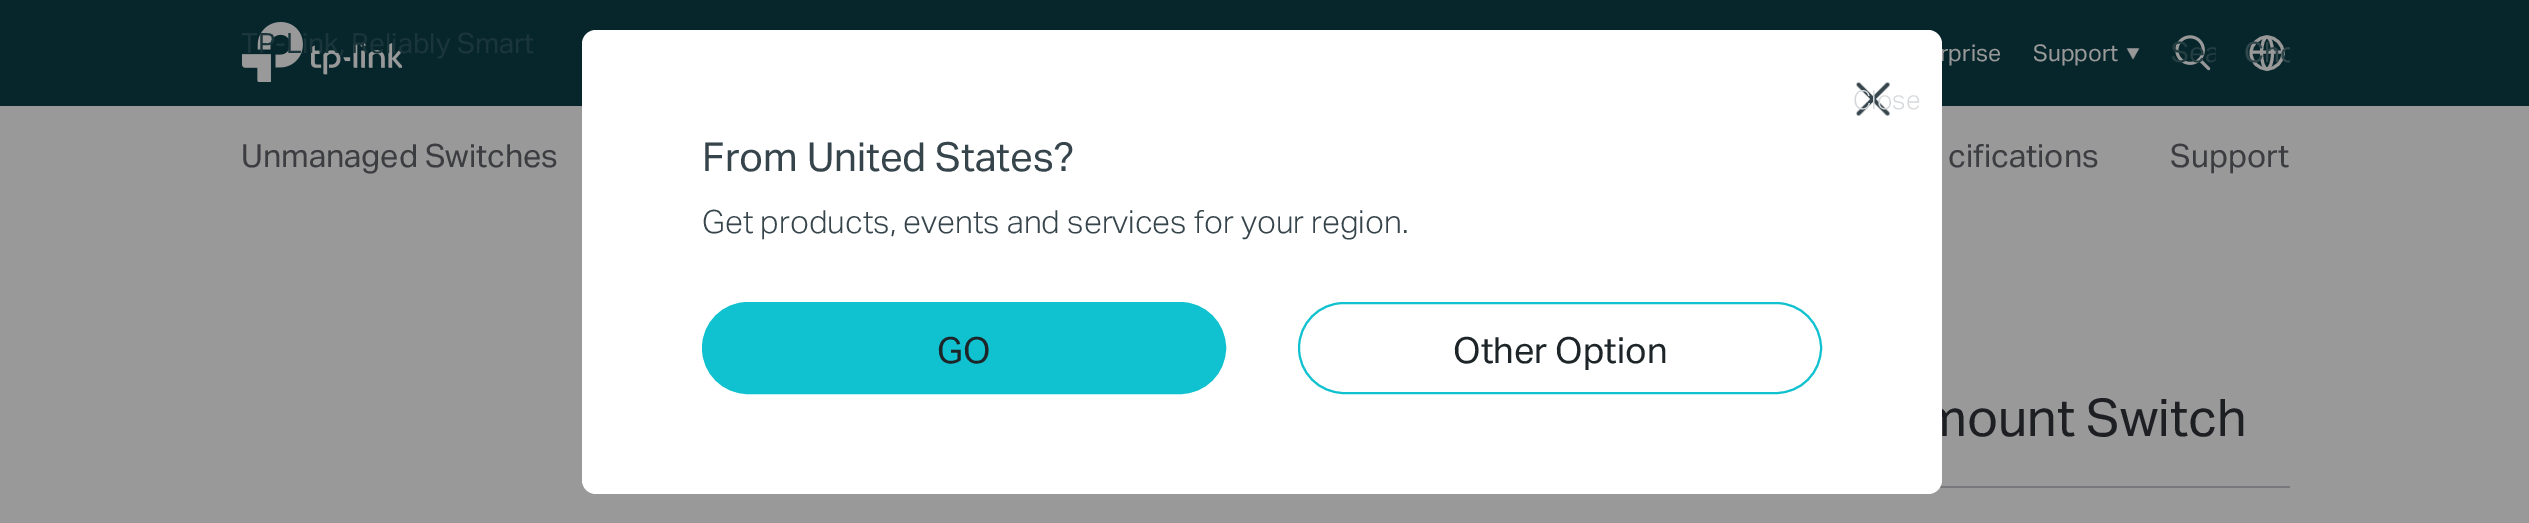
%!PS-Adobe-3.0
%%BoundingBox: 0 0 2529 523
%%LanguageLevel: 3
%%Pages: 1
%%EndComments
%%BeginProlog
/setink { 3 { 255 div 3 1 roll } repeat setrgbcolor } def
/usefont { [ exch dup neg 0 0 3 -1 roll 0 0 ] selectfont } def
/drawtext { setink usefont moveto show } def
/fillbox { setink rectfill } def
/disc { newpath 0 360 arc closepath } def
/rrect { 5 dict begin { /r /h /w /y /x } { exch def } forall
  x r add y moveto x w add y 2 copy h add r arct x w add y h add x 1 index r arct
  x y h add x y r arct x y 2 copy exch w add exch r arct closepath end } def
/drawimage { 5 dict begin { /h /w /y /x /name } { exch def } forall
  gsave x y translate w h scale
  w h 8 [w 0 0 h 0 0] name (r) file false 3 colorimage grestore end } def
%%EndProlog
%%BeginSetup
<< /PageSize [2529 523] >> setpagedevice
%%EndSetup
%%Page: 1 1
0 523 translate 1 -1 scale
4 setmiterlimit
0 0 2529 523 153 153 153 fillbox
0 0 2529 106 7 38 44 fillbox
(assets/img1.rgb) 242 22 160 60 drawimage
gsave
242 22 384 60 rectclip
(TP-Link, Reliably Smart) 241 53 /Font-Regular 28 27 54 59 drawtext
grestore
(rprise) 1940 61 /Font-Regular 23 153 153 153 drawtext
(Support) 2033 61 /Font-Regular 23 153 153 153 drawtext
(assets/img2.rgb) 2126 48 14 12 drawimage
(assets/img3.rgb) 2175 35 36 36 drawimage
gsave
2170 30 46 46 rectclip
(Sea) 2171 62 /Font-Regular 28 35 61 65 drawtext
grestore
3 setlinewidth
2267 53 16 disc stroke
2267 37 moveto 2270 37 2272.5 44 2272.5 53 curveto 2272.5 62 2270 69 2267 69 curveto 2264 69 2261.5 62 2261.5 53 curveto 2261.5 44 2264 37 2267 37 curveto closepath stroke
3.1 setlinewidth
2252 52 moveto 2282 52 lineto stroke
gsave
2244 30 46 46 rectclip
(Cho) 2244 62 /Font-Regular 28 48 71 75 drawtext
grestore
1939 486 351 2 120 121 125 fillbox
(mount Switch) 1922 436 /Font-Regular 52 30 31 35 drawtext
255 255 255 setink
582 30 1360 464 14 rrect fill
(assets/img4.rgb) 1856 82 35 35 drawimage
(Close) 1853 109 /Font-Light 26 213 216 218 drawtext
(From United States?) 702 171 /Font-Regular 40 54 68 75 drawtext
(Get products, events and services for your region.) 702 233 /Font-Light 32 54 68 75 drawtext
16 193 208 setink
703 303 522 90 45 rrect gsave fill grestore
2 setlinewidth
stroke
(GO) 937 363 /Font-Regular 36 29 37 41 drawtext
16 193 208 setink
1299 303 522 90 45 rrect stroke
(Other Option) 1453 363 /Font-Regular 36 29 37 41 drawtext
(Unmanaged Switches) 241 167 /Font-Regular 32 60 61 65 drawtext
(cifications) 1948 167 /Font-Regular 32 60 61 65 drawtext
(Support) 2170 167 /Font-Regular 32 60 61 65 drawtext
showpage
%%EOF
